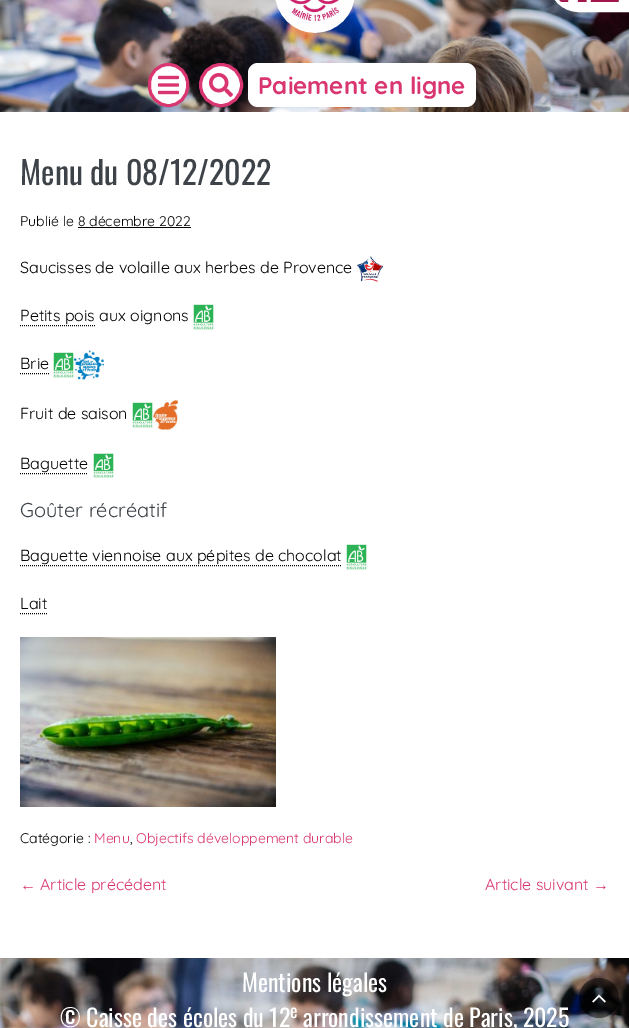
%!PS-Adobe-3.0
%%BoundingBox: 0 0 629 1028
%%LanguageLevel: 3
%%Pages: 1
%%EndComments
%%BeginProlog
/setink { 3 { 255 div 3 1 roll } repeat setrgbcolor } def
/usefont { [ exch dup neg 0 0 3 -1 roll 0 0 ] selectfont } def
/drawtext { setink usefont moveto show } def
/fillbox { setink rectfill } def
/setalpha { dup .setfillconstantalpha .setstrokeconstantalpha } def
/disc { newpath 0 360 arc closepath } def
/rrect { 5 dict begin { /r /h /w /y /x } { exch def } forall
  x r add y moveto x w add y 2 copy h add r arct x w add y h add x 1 index r arct
  x y h add x y r arct x y 2 copy exch w add exch r arct closepath end } def
/drawimage { 5 dict begin { /h /w /y /x /name } { exch def } forall
  gsave x y translate w h scale
  w h 8 [w 0 0 h 0 0] name (r) file false 3 colorimage grestore end } def
%%EndProlog
%%BeginSetup
<< /PageSize [629 1028] /PageUsesTransparency true >> setpagedevice
%%EndSetup
%%Page: 1 1
0 .pushpdf14devicefilter
0 1028 translate 1 -1 scale
4 setmiterlimit
0 0 629 1028 255 255 255 fillbox
(assets/img1.rgb) 0 0 629 112 drawimage
10 setlinewidth
554 -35 moveto 624 -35 lineto 624 7 lineto 579 7 lineto 565 7 554 -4 554 -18 curveto closepath stroke
(assets/img2.rgb) 559 0 60 2 drawimage
(assets/img3.rgb) 275 0 80 33 drawimage
149.5 64.5 38 41 19 rrect gsave fill grestore
217 53 112 setink
3 setlinewidth
stroke
(assets/img4.rgb) 158 75 21 20 drawimage
255 255 255 setink
221 85 20.5 disc gsave fill grestore
217 53 112 setink
stroke
(assets/img5.rgb) 209 73 24 24 drawimage
255 255 255 setink
248 63 228 44 10 rrect fill
(Paiement en ligne) 258 94 /Quicksand-Bold 24 217 53 112 drawtext
(Menu du 08/12/2022) 20 185 /Oswald-Regular 32 62 67 73 drawtext
(Publié le 8 décembre 2022) 20 226 /Quicksand-Regular 14 0 0 0 drawtext
78 227 113 1 0 0 0 fillbox
(Saucisses de volaille aux herbes de Provence) 20 273 /Quicksand-Regular 16 0 0 0 drawtext
(assets/img6.rgb) 357 256 26 26 drawimage
(Petits pois aux oignons) 20 321 /Quicksand-Regular 16 0 0 0 drawtext
1 setlinewidth
[1 1] 0 setdash
20 325.5 moveto 95 325.5 lineto stroke
(assets/img7.rgb) 193 304 21 26 drawimage
(Brie) 20 369 /Quicksand-Regular 16 0 0 0 drawtext
20 373.5 moveto 49 373.5 lineto stroke
(assets/img7.rgb) 53 352 21 26 drawimage
(assets/img8.rgb) 74 350 30 30 drawimage
(Fruit de saison) 20 419 /Quicksand-Regular 16 0 0 0 drawtext
(assets/img7.rgb) 132 402 21 26 drawimage
(assets/img9.rgb) 153 400 25 30 drawimage
(Baguette) 20 469 /Quicksand-Regular 16 0 0 0 drawtext
20 473.5 moveto 88 473.5 lineto stroke
(assets/img10.rgb) 93 453 21 25 drawimage
(Goûter récréatif) 20 517 /Quicksand-Regular 20 62 67 73 drawtext
(Baguette viennoise aux pépites de chocolat) 20 561 /Quicksand-Regular 16 0 0 0 drawtext
20 565.5 moveto 162 565.5 lineto stroke
162 565.5 moveto 342 565.5 lineto stroke
(assets/img7.rgb) 346 544 21 26 drawimage
(Lait) 20 609 /Quicksand-Regular 16 0 0 0 drawtext
20 613.5 moveto 47 613.5 lineto stroke
(assets/img11.rgb) 20 637 256 170 drawimage
(Catégorie :) 20 843 /Quicksand-Regular 14 0 0 0 drawtext
(Menu) 94 843 /Quicksand-Regular 14 217 53 112 drawtext
(,) 130 843 /Quicksand-Regular 14 0 0 0 drawtext
(Objectifs développement durable) 136 843 /Quicksand-Regular 14 217 53 112 drawtext
(←) 20 890 /LiberationSerif-Regular 16 217 53 112 drawtext
(Article précédent) 40 890 /Quicksand-Regular 16 217 53 112 drawtext
(Article suivant) 485 890 /Quicksand-Regular 16 217 53 112 drawtext
(→) 593 890 /LiberationSerif-Regular 16 217 53 112 drawtext
(assets/img12.rgb) 0 958 629 70 drawimage
(Mentions légales) 242 992 /Oswald-Regular 24 255 255 255 drawtext
(© Caisse des écoles du 12) 60 1027 /Oswald-Regular 24 255 255 255 drawtext
(e) 290 1018 /Oswald-Regular 18 255 255 255 drawtext
(arrondissement de Paris, 2025) 303 1027 /Oswald-Regular 24 255 255 255 drawtext
0.5 setalpha
0 0 0 setink
599 998 20 disc fill
1 setalpha
(assets/img13.rgb) 592 994 14 9 drawimage
.poppdf14devicefilter showpage
%%EOF
